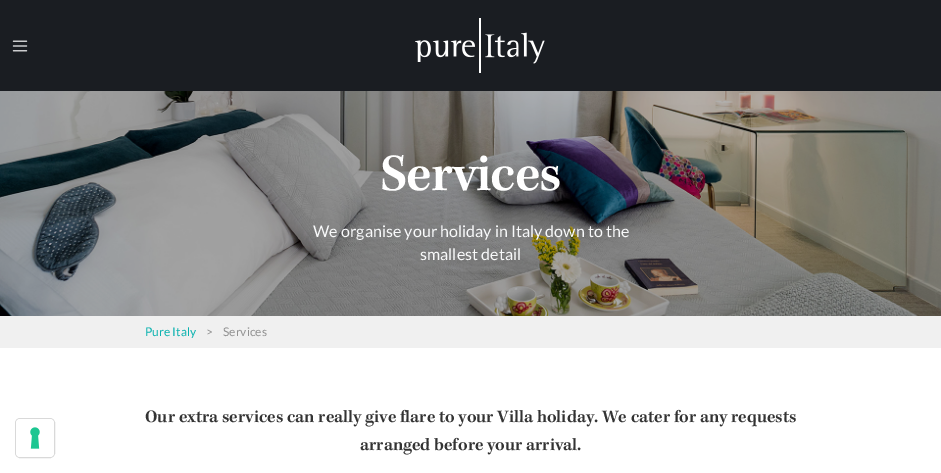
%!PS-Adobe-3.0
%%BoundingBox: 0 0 941 473
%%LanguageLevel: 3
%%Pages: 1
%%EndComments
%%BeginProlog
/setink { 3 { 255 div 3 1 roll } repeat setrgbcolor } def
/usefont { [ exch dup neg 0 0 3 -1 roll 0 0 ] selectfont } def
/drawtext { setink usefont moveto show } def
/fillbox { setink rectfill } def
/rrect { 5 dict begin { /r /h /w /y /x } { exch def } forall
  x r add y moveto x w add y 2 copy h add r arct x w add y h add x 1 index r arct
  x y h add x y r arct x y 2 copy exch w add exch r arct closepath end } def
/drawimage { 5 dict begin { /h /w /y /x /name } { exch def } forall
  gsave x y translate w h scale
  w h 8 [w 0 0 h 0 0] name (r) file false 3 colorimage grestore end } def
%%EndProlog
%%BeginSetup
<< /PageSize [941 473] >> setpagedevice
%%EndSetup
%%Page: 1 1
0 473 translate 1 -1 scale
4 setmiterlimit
0 0 941 473 255 255 255 fillbox
0 0 941 91 26 29 34 fillbox
(assets/img1.rgb) 12 40 16 12 drawimage
(assets/img2.rgb) 415 18 130 55 drawimage
217 217 217 setink
15.5 418.5 39 39 4.5 rrect stroke
255 255 255 setink
16 419 38 38 4 rrect fill
(assets/img3.rgb) 30 427 10 22 drawimage
(assets/img4.rgb) 0 91 941 225 drawimage
/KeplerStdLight-SemiBold 54 usefont
380 190 moveto -1 0 (Services) ashow
(We organise your holiday in Italy down to the) 313 237 /Lato-Regular 16.1 248 249 250 drawtext
(smallest detail) 420 260 /Lato-Regular 16.1 248 249 250 drawtext
0 316 941 32 240 240 240 fillbox
(Pure Italy) 145 336 /Lato-Regular 12 9 178 175 drawtext
(>) 206 336 /Lato-Regular 12 146 146 146 drawtext
(Services) 223 336 /Lato-Regular 12 146 146 146 drawtext
(Our extra services can really give flare to your Villa holiday. We cater for any requests) 145 422 /KeplerStdLight-SemiBold 18 51 51 51 drawtext
(arranged before your arrival.) 360 450 /KeplerStdLight-SemiBold 18 51 51 51 drawtext
showpage
%%EOF
